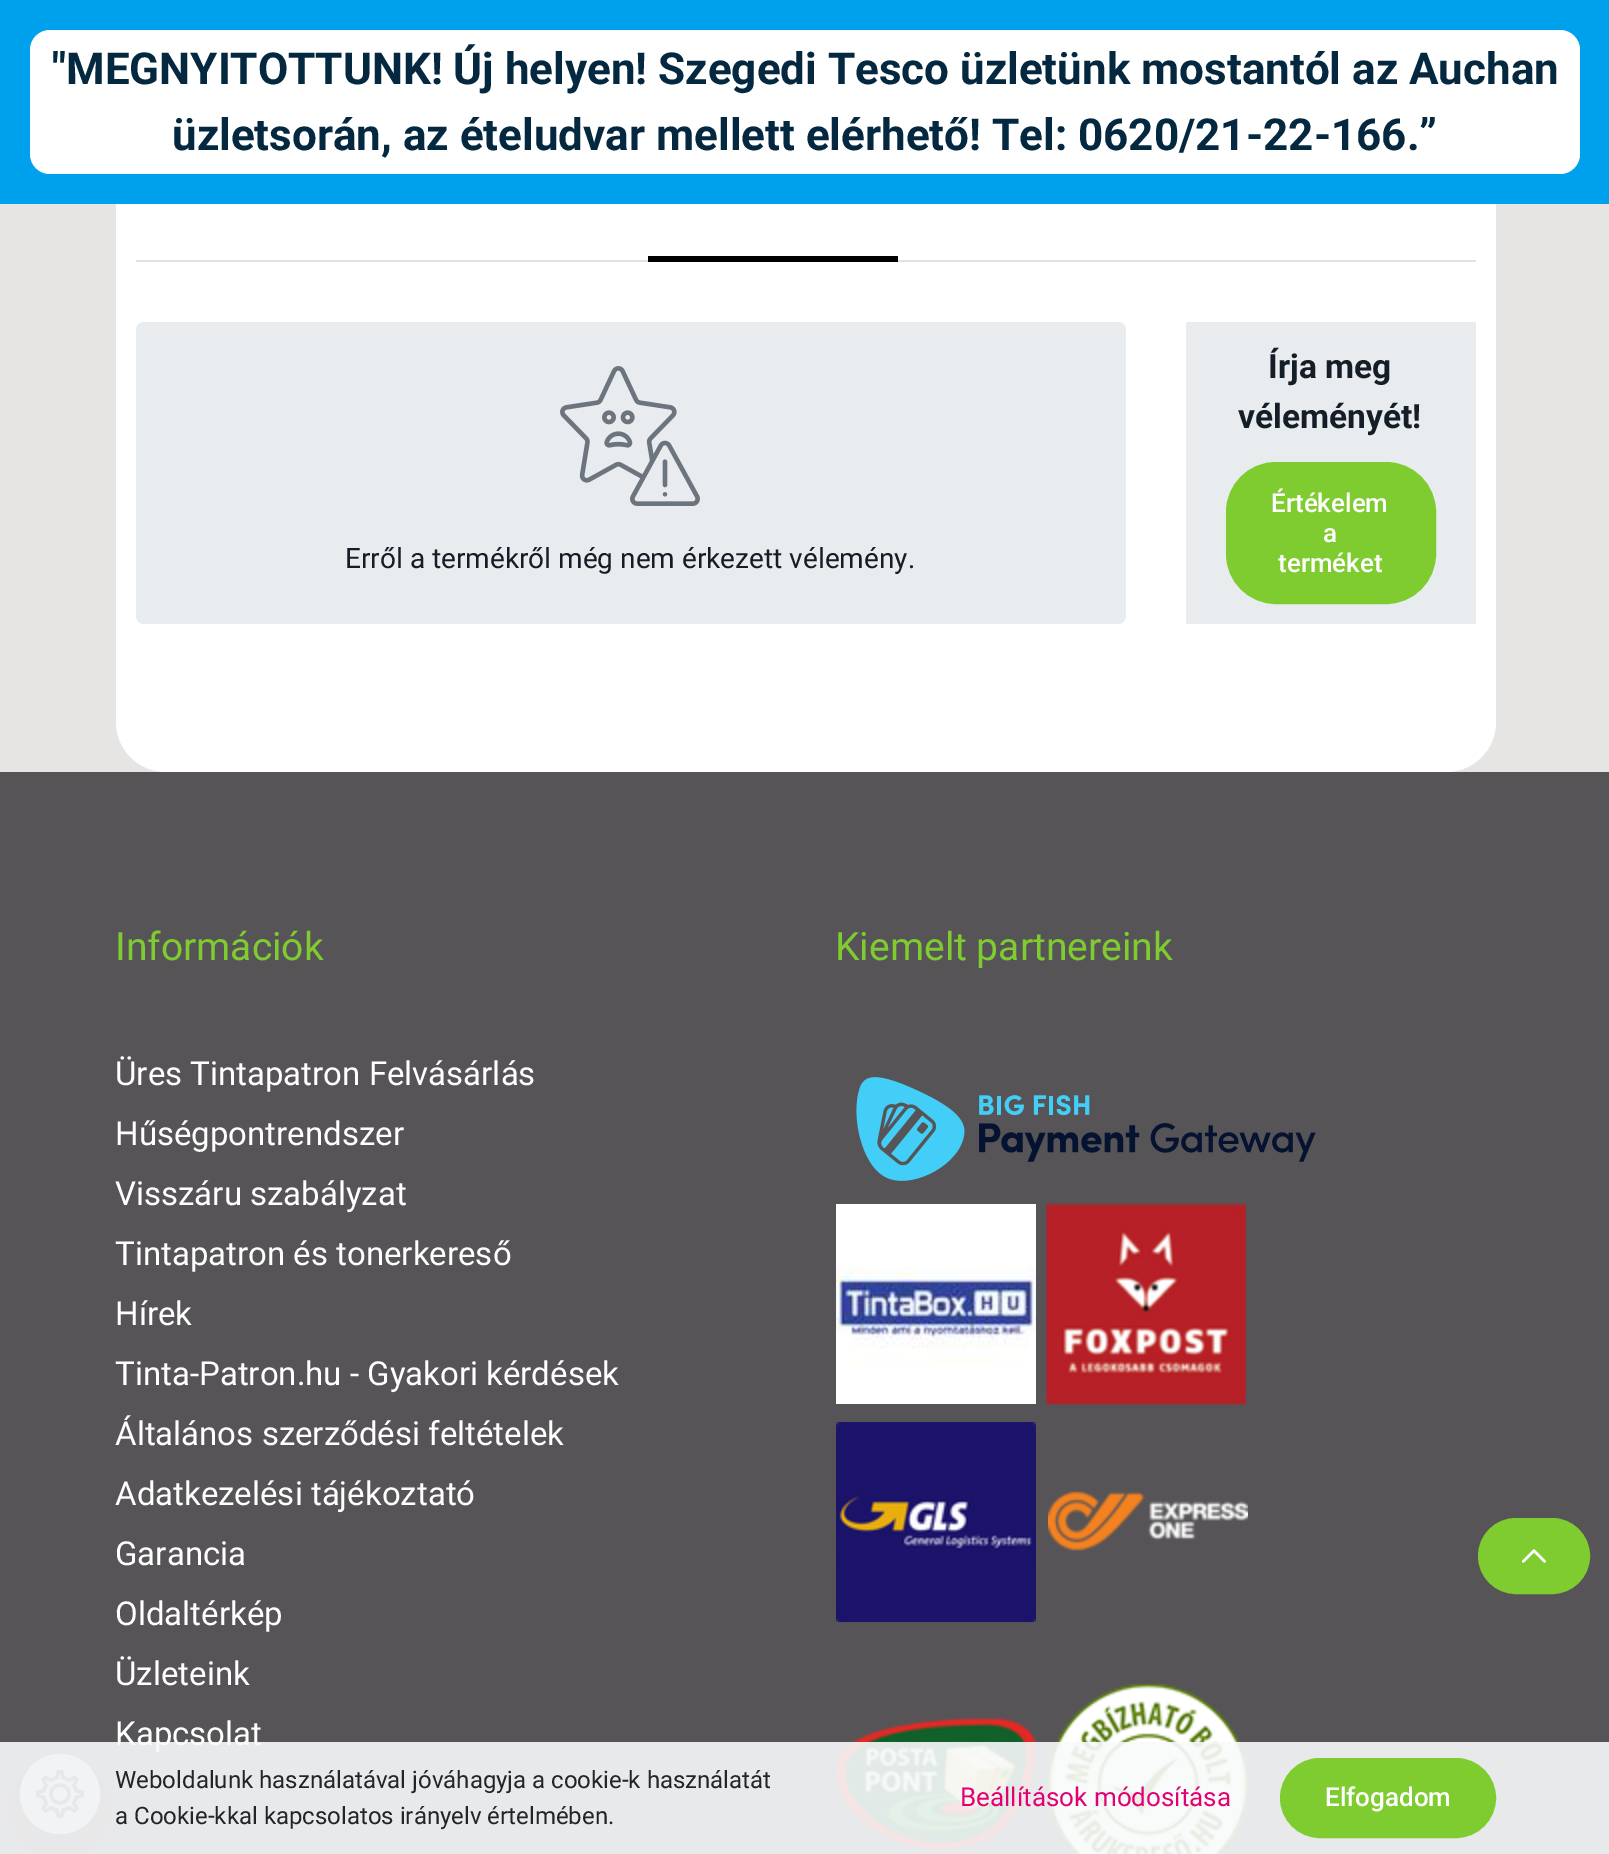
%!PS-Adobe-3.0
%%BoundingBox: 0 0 1609 1854
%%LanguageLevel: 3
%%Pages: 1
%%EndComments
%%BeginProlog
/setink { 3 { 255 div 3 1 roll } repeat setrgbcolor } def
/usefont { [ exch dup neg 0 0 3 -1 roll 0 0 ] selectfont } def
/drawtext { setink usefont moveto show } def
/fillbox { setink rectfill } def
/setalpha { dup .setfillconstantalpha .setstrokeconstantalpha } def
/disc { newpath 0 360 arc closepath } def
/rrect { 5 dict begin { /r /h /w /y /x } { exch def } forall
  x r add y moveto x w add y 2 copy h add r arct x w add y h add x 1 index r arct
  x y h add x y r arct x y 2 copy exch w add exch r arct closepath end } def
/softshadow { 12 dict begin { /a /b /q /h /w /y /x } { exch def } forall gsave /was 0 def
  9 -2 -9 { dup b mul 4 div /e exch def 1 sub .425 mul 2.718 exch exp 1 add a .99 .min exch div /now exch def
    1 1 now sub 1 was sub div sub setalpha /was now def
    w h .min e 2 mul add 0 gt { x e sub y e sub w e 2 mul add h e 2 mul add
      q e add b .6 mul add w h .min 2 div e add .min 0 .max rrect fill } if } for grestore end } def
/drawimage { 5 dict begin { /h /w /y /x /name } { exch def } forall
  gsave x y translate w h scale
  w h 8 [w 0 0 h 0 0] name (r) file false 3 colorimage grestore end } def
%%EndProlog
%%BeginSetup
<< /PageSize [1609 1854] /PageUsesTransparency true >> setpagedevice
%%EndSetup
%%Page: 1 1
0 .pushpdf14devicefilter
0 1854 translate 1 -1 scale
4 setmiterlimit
0 0 1609 1854 231 228 228 fillbox
255 255 255 setink
116 132 1380 640 50 rrect fill
0 0 1609 204 0 161 236 fillbox
255 255 255 setink
30 30 1550 144 20 rrect fill
("MEGNYITOTTUNK! Új helyen! Szegedi Tesco üzletünk mostantól az Auchan) 52 84 /Roboto-Bold 44 3 40 63 drawtext
(üzletsorán, az ételudvar mellett elérhető! Tel: 0620/21-22-166.”) 172 150 /Roboto-Bold 44 3 40 63 drawtext
136 260 1340 2 222 226 230 fillbox
648 256 250 6 0 0 0 fillbox
233 236 239 setink
136 322 990 302 8 rrect fill
(assets/img1.rgb) 560 366 140 140 drawimage
(Erről a termékről még nem érkezett vélemény.) 345 568 /Roboto-Regular 28 21 30 38 drawtext
1186 322 290 302 233 236 239 fillbox
(Írja meg) 1268 378 /Roboto-Bold 33.5 21 30 38 drawtext
(véleményét!) 1238 428 /Roboto-Bold 33.5 21 30 38 drawtext
126 204 48 setink
1227 463 208 140 49 rrect gsave fill grestore
2 setlinewidth
stroke
(Értékelem) 1271 512 /Roboto-Medium 26 255 255 255 drawtext
(a) 1323 542 /Roboto-Medium 26 255 255 255 drawtext
(terméket) 1278 572 /Roboto-Medium 26 255 255 255 drawtext
0 772 1609 1082 87 84 87 fillbox
(Információk) 115 960 /Roboto-Regular 39 127 204 48 drawtext
(Üres Tintapatron Felvásárlás) 115 1085 /Roboto-Regular 33 255 255 255 drawtext
(Hűségpontrendszer) 115 1145 /Roboto-Regular 33 255 255 255 drawtext
(Visszáru szabályzat) 115 1205 /Roboto-Regular 33 255 255 255 drawtext
(Tintapatron és tonerkereső) 115 1265 /Roboto-Regular 33 255 255 255 drawtext
(Hírek) 115 1325 /Roboto-Regular 33 255 255 255 drawtext
(Tinta-Patron.hu - Gyakori kérdések) 115 1385 /Roboto-Regular 33 255 255 255 drawtext
(Általános szerződési feltételek) 115 1445 /Roboto-Regular 33 255 255 255 drawtext
(Adatkezelési tájékoztató) 115 1505 /Roboto-Regular 33 255 255 255 drawtext
(Garancia) 115 1565 /Roboto-Regular 33 255 255 255 drawtext
(Oldaltérkép) 115 1625 /Roboto-Regular 33 255 255 255 drawtext
(Üzleteink) 115 1685 /Roboto-Regular 33 255 255 255 drawtext
(Kapcsolat) 115 1745 /Roboto-Regular 33 255 255 255 drawtext
(Kiemelt partnereink) 835 960 /Roboto-Regular 39 127 204 48 drawtext
(assets/img2.rgb) 856 1077 460 104 drawimage
(assets/img3.rgb) 836 1204 200 200 drawimage
(assets/img4.rgb) 1046 1202 200 204 drawimage
(assets/img5.rgb) 836 1422 200 200 drawimage
(assets/img6.rgb) 1048 1491 200 60 drawimage
(assets/img7.rgb) 836 1717 200 134 drawimage
(assets/img8.rgb) 1048 1684 200 170 drawimage
126 204 48 setink
1479 1519 110 74 37 rrect gsave fill grestore
stroke
(assets/img9.rgb) 1522 1549 24 14 drawimage
0 0 0 setink
20 1770 80 80 40 16 0.15 softshadow
184 188 190 setink
60 1794 40 disc fill
(assets/img10.rgb) 36 1770 48 48 drawimage
0.9 setalpha
0 1742 1609 112 248 249 250 fillbox
1 setalpha
(Weboldalunk használatával jóváhagyja a cookie-k használatát) 115 1788 /Roboto-Regular 24 33 37 41 drawtext
(a Cookie-kkal kapcsolatos irányelv értelmében.) 115 1824 /Roboto-Regular 24 33 37 41 drawtext
(Beállítások módosítása) 960 1806 /Roboto-Regular 26 226 0 117 drawtext
126 204 48 setink
1281 1759 214 78 39 rrect gsave fill grestore
stroke
(Elfogadom) 1325 1806 /Roboto-Medium 26 255 255 255 drawtext
.poppdf14devicefilter showpage
%%EOF
